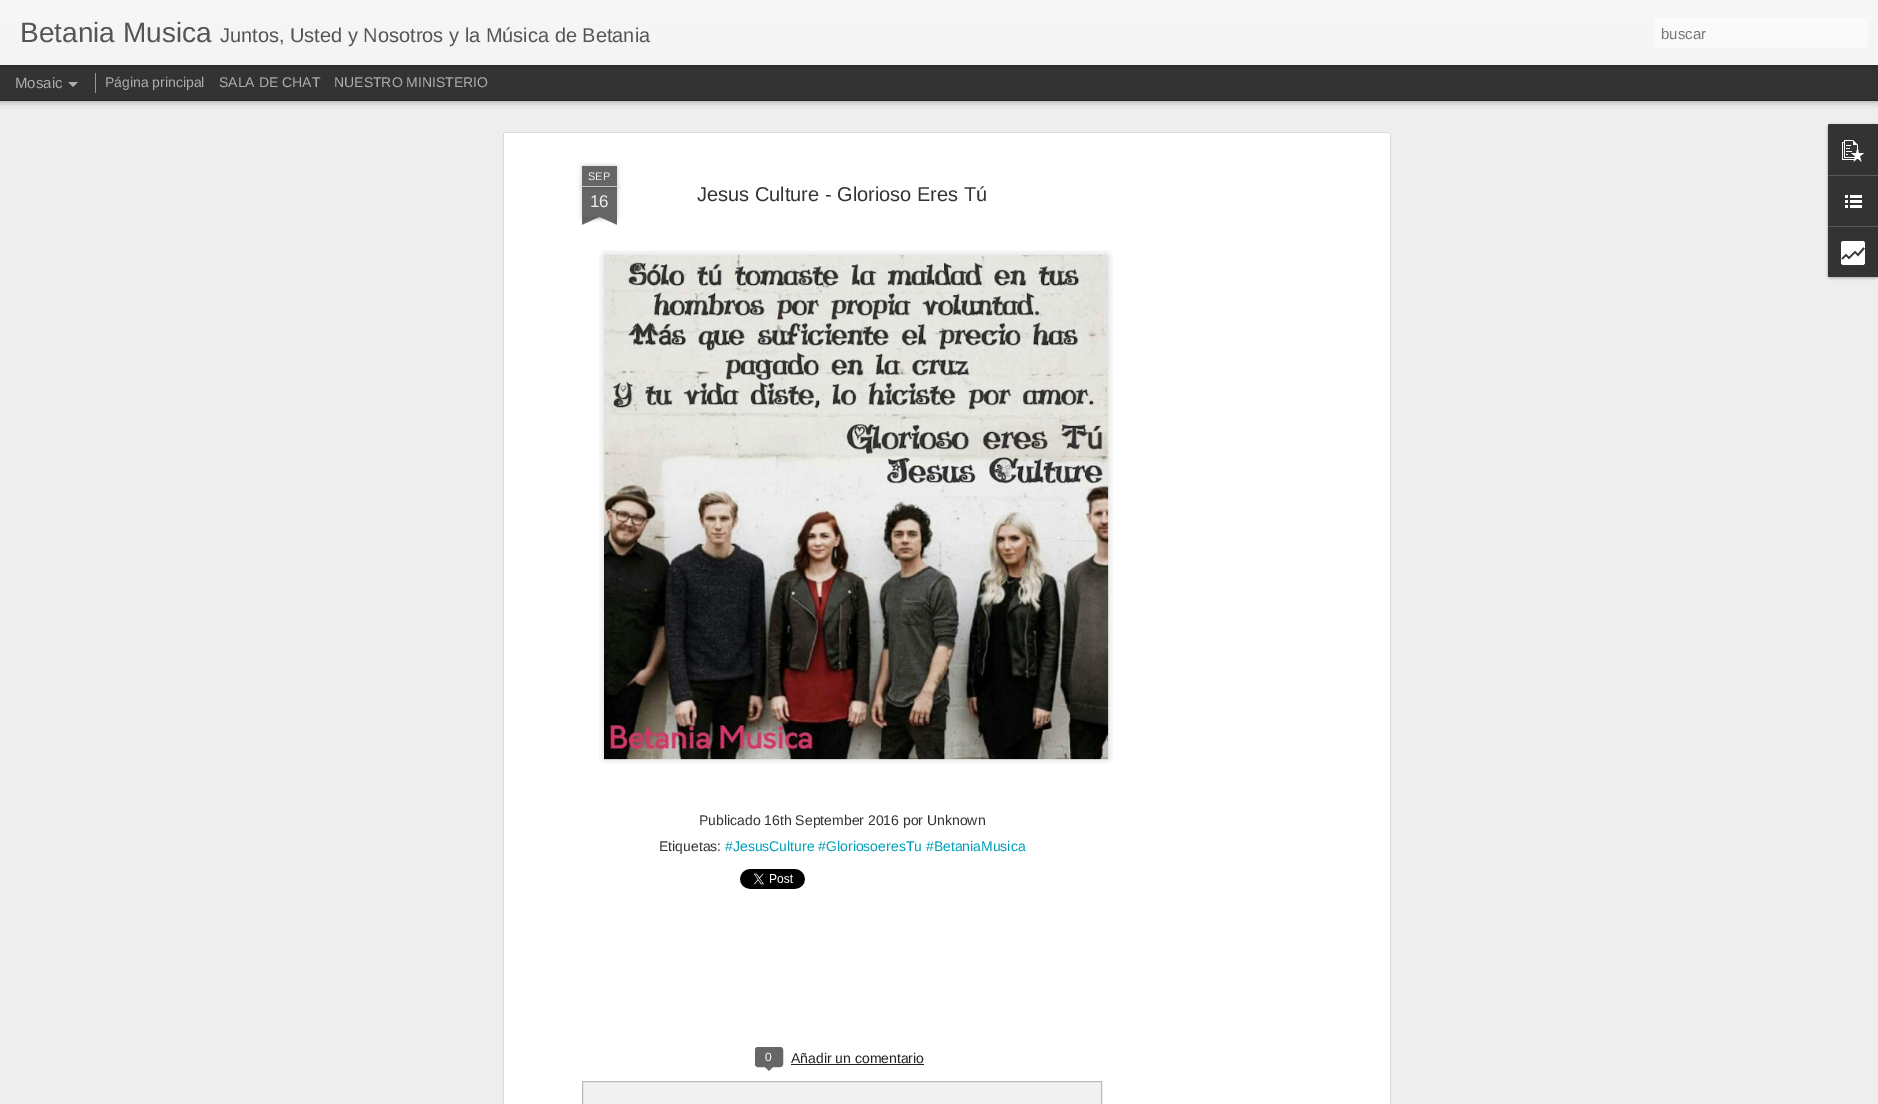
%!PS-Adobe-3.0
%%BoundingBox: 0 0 1878 1104
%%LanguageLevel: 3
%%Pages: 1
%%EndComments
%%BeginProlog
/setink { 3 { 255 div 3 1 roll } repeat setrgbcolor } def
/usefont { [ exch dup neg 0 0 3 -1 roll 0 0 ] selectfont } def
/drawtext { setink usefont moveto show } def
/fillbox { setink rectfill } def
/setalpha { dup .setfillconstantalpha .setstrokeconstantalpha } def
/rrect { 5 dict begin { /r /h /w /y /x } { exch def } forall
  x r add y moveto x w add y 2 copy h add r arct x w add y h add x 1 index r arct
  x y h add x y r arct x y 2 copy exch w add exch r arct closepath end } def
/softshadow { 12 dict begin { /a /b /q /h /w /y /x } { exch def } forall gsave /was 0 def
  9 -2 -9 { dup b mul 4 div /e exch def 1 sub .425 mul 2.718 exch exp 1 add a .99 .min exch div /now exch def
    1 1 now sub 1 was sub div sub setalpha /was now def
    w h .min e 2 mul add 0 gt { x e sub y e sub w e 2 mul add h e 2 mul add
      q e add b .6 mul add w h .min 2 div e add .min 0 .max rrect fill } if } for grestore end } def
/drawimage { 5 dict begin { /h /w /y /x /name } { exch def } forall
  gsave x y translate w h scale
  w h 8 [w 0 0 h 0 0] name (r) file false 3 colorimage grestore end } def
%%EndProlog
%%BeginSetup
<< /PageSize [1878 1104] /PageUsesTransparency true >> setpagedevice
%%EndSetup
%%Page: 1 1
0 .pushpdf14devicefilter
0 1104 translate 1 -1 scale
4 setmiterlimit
0 0 1878 1104 51 51 51 fillbox
0 101 1878 1003 238 238 238 fillbox
0 0 0 setink
0 65 1878 35 0 4 0.5 softshadow
0 65 1878 35 51 51 51 fillbox
95 73 1 20 153 153 153 fillbox
0 0 0 setink
0 0 1878 65 0 2.5 0.3 softshadow
gsave 0 0 moveto 1878 0 lineto 1878 65 lineto 0 65 lineto closepath clip newpath
<< /ShadingType 2 /ColorSpace /DeviceRGB /Coords [0 0 0 65] /Extend [true true] /Function << /FunctionType 2 /Domain [0 1] /C0 [0.969 0.969 0.969] /C1 [0.957 0.957 0.957] /N 1 >> >> shfill grestore
(Betania Musica) 20 42 /LiberationSans-Regular 28 85 85 85 drawtext
(Juntos, Usted y Nosotros y la Música de Betania) 220 42 /LiberationSans-Regular 20 85 85 85 drawtext
250 250 250 setink
1654 18 214 30 3 rrect fill
(buscar) 1661 39 /LiberationSans-Regular 15 117 117 117 drawtext
(Mosaic) 15 88 /LiberationSans-Regular 15 173 173 173 drawtext
68 82 moveto 78 82 lineto 73 87 lineto closepath fill
(Página principal) 105 87 /LiberationSans-Regular 14 173 173 173 drawtext
(SALA DE CHAT) 219 87 /LiberationSans-Regular 14 173 173 173 drawtext
(NUESTRO MINISTERIO) 334 87 /LiberationSans-Regular 14 173 173 173 drawtext
502 131 890 973 255 255 255 fillbox
(assets/img1.rgb) 502 131 890 973 drawimage
0 0 0 setink
582 187 35 30 0 2.5 0.2 softshadow
582 187 35 30 102 102 102 fillbox
0 0 0 setink
582 166 35 21 1 2.5 0.2 softshadow
102 102 102 setink
583 166 moveto 616 166 lineto 616.5 166 617 166.5 617 167 curveto 617 187 lineto 582 187 lineto 582 167 lineto 582 166.5 582.5 166 583 166 curveto closepath fill
582 186 35 1 194 194 194 fillbox
(SEP) 588 180 /LiberationSans-Regular 11 238 238 238 drawtext
(16) 590 207 /LiberationSans-Regular 17 238 238 238 drawtext
gsave
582 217 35 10 rectclip
0 0 0 setink
573 207 50 10 0 2.5 0.2 softshadow
grestore
gsave
582 217 35 10 rectclip
102 102 102 setink
573 218 moveto 619 197 lineto 623 206 lineto 577 227 lineto closepath fill
grestore
gsave
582 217 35 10 rectclip
0 0 0 setink
576 207 50 10 0 2.5 0.2 softshadow
grestore
gsave
582 217 35 10 rectclip
102 102 102 setink
580 197 moveto 626 218 lineto 622 227 lineto 576 206 lineto closepath fill
grestore
(Jesus Culture - Glorioso Eres Tú) 697 201 /LiberationSans-Regular 20 51 51 51 drawtext
(assets/img2.rgb) 599 250 514 514 drawimage
(assets/img3.rgb) 604 257 505 503 drawimage
(Publicado 16th September 2016 por Unknown) 699 825 /LiberationSans-Regular 14 51 51 51 drawtext
(Etiquetas:) 659 851 /LiberationSans-Regular 14 51 51 51 drawtext
(#JesusCulture #GloriosoeresTu #BetaniaMusica) 725 851 /LiberationSans-Regular 14 0 158 184 drawtext
(assets/img4.rgb) 740 869 65 20 drawimage
102 102 102 setink
755.5 1047.5 27 19 2.5 rrect gsave fill grestore
stroke
(0) 765 1061 /LiberationSans-Regular 12 255 255 255 drawtext
102 102 102 setink
764 1066 moveto 774 1066 lineto 769 1071 lineto closepath fill
(Añadir un comentario) 791 1063 /LiberationSans-Regular 14 34 34 34 drawtext
791 1064 133 1 34 34 34 fillbox
241 241 241 setink
582.5 1081.5 moveto 1101.5 1081.5 lineto 1101.5 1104.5 lineto 582.5 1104.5 lineto closepath gsave fill grestore
187 187 187 setink
stroke
0 0 0 setink
1828 125 50 153 2 1.5 0.3 softshadow
51 51 51 setink
1830 124 moveto 1878 124 lineto 1878 277 lineto 1830 277 lineto 1829 277 1828 276 1828 275 curveto 1828 126 lineto 1828 125 1829 124 1830 124 curveto closepath fill
1830 124 moveto 1878 124 lineto 1878 175 lineto 1828 175 lineto 1828 126 lineto 1828 125 1829 124 1830 124 curveto closepath fill
(assets/img5.rgb) 1842 140 22 22 drawimage
1828 175 50 1 88 88 88 fillbox
(assets/img6.rgb) 1845 195 17 13 drawimage
51 51 51 setink
1828 226 moveto 1878 226 lineto 1878 277 lineto 1830 277 lineto 1829 277 1828 276 1828 275 curveto closepath fill
1828 226 50 1 88 88 88 fillbox
(assets/img7.rgb) 1841 241 24 24 drawimage
.poppdf14devicefilter showpage
%%EOF
